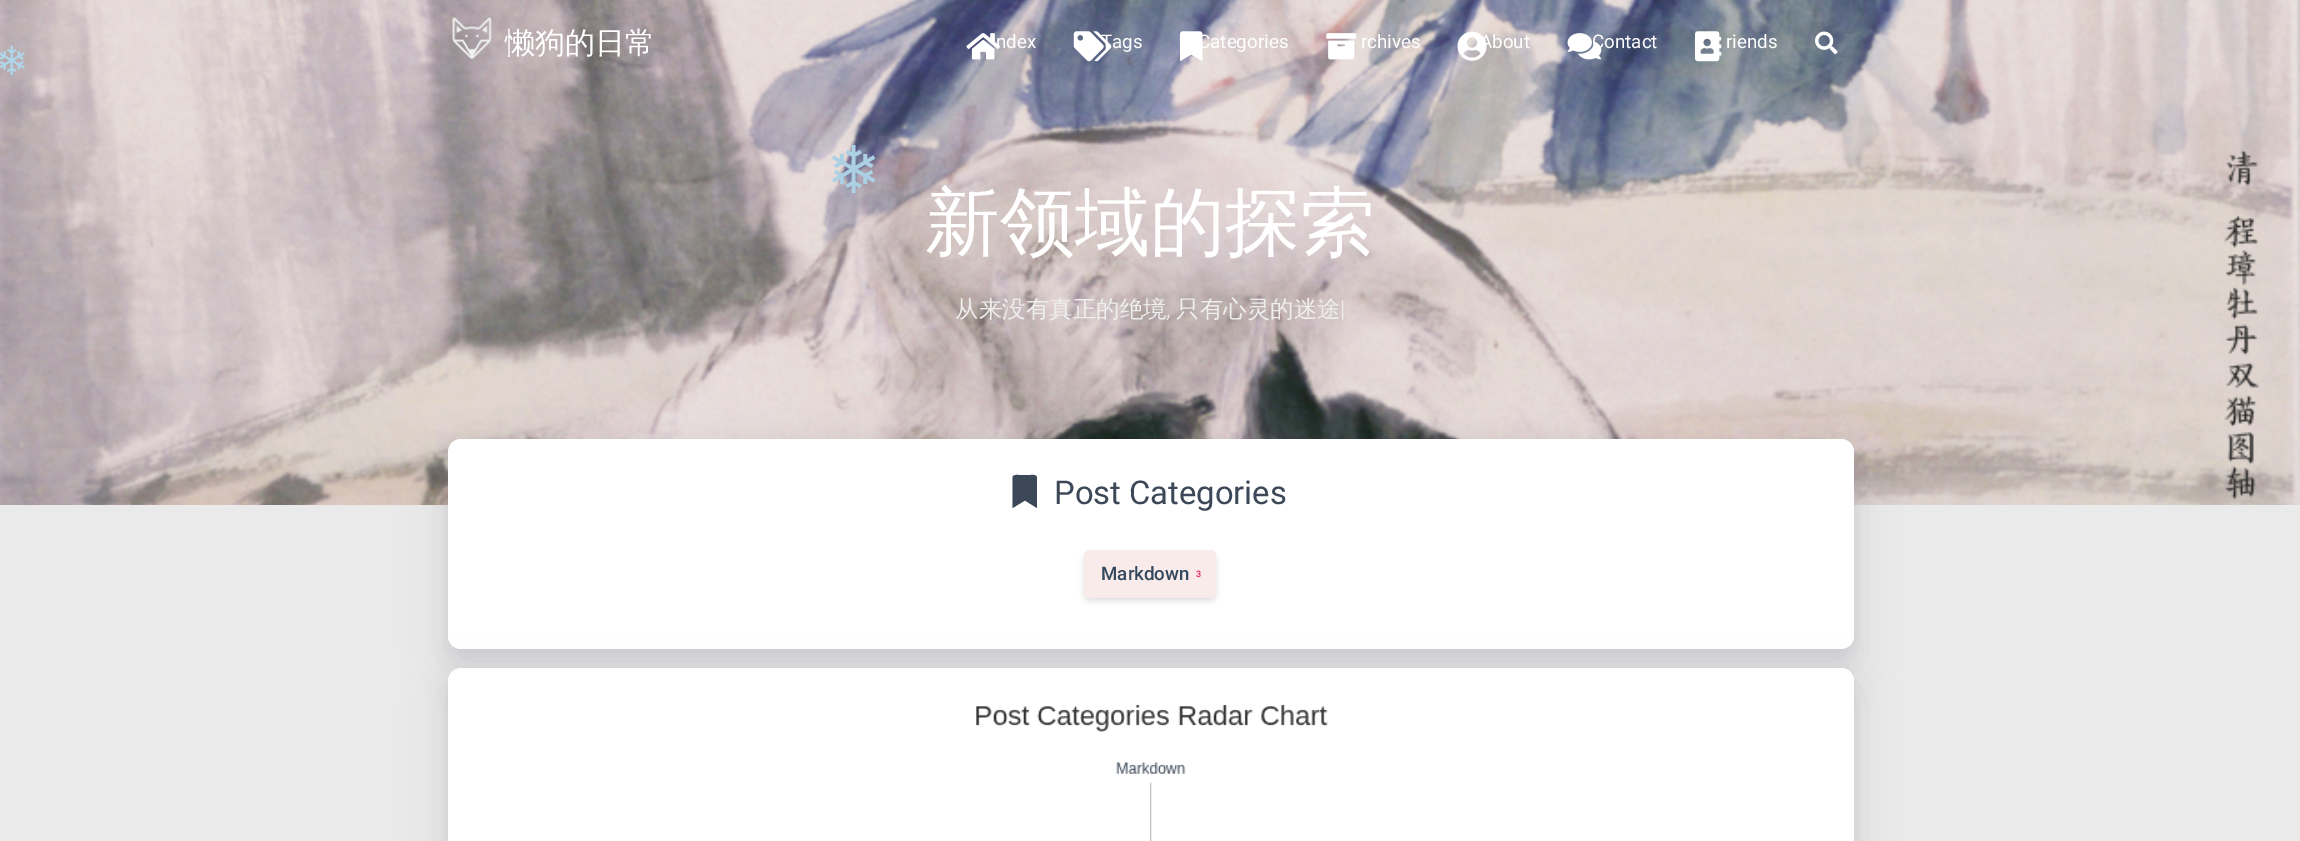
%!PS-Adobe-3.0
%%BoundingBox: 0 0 2300 841
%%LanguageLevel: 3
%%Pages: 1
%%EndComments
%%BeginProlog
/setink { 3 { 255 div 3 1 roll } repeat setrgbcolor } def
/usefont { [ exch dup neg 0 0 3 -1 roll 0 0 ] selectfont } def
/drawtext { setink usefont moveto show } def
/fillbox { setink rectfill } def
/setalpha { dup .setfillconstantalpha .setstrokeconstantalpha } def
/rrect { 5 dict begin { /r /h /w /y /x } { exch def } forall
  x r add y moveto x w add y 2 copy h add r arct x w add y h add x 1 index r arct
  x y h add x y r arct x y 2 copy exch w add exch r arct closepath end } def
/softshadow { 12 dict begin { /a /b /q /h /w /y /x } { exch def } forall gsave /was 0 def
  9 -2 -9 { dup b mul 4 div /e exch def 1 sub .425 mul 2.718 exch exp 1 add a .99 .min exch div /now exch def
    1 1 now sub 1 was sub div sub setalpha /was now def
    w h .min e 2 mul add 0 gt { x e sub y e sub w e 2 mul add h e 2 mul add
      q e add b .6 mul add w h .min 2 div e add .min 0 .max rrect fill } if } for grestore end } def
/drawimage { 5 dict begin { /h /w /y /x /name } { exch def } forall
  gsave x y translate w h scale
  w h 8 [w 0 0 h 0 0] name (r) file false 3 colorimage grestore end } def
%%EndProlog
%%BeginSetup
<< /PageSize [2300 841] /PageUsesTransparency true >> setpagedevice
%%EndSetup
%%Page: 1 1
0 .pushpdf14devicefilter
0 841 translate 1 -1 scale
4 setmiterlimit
0 0 2300 841 234 234 234 fillbox
(assets/img10.rgb) 0 0 2300 505 drawimage
(assets/img1.rgb) 452 17 40 42 drawimage
(懒狗的日常) 505 53 /WenQuanYiZenHei-Medium 30 255 255 255 drawtext
(assets/img2.rgb) 966 33 34 27 drawimage
(ndex) 996 48 /Roboto-Regular 18.75 255 255 255 drawtext
(assets/img3.rgb) 1073 31 39 31 drawimage
(Tags) 1101 48 /Roboto-Regular 18.75 255 255 255 drawtext
(assets/img4.rgb) 1180 31 23 31 drawimage
(Categories) 1198 48 /Roboto-Regular 18.75 255 255 255 drawtext
(assets/img5.rgb) 1326 33 31 27 drawimage
(rchives) 1361 48 /Roboto-Regular 18.75 255 255 255 drawtext
(assets/img6.rgb) 1457 31 30 30 drawimage
(About) 1480 48 /Roboto-Regular 18.75 255 255 255 drawtext
(assets/img7.rgb) 1567 33 35 27 drawimage
(Contact) 1592 48 /Roboto-Regular 18.75 255 255 255 drawtext
(assets/img8.rgb) 1695 31 27 31 drawimage
(riends) 1726 48 /Roboto-Regular 18.75 255 255 255 drawtext
(assets/img9.rgb) 1815 31 23 23 drawimage
(❄) -5 75 /DejaVuSans-Regular 40 176 214 234 drawtext
(❄) 826 193 /DejaVuSans-Regular 66 172 208 228 drawtext
(新领域的探索) 925 248 /WenQuanYiZenHei-Medium 75 255 255 255 drawtext
(从来没有真正的绝境) 955 317 /WenQuanYiZenHei-Medium 23.5 238 238 238 drawtext
(,) 1166 317 /Roboto-Light 23.5 238 238 238 drawtext
(只有心灵的迷途) 1176 317 /WenQuanYiZenHei-Medium 23.5 238 238 238 drawtext
(|) 1340 317 /Roboto-Light 23.5 238 238 238 drawtext
0 0 0 setink
448 445 1406 210 13 9.5 0.07 softshadow
50 50 93 setink
448 458 1406 210 13 22 0.1 softshadow
255 255 255 setink
448 439 1406 210 13 rrect fill
60 72 88 setink
1012.5 508 moveto 1012.5 477.5 lineto 1013 474.5 1016.5 475 1018.5 475 curveto 1031 475 lineto 1033 475 1036.5 474.5 1037 477.5 curveto 1037 508 lineto 1025 500.5 lineto closepath fill
(Post Categories) 1054 504 /Roboto-Regular 32.75 60 72 88 drawtext
0 0 0 setink
1084 554 132 47 6 3 0.12 softshadow
249 235 234 setink
1084 550 132 48 6 rrect fill
(Markdown) 1101 580 /Roboto-Medium 18.75 52 73 94 drawtext
(3) 1196 577 /Roboto-Medium 9 233 30 99 drawtext
0 0 0 setink
448 674 1406 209 13 9.5 0.07 softshadow
50 50 93 setink
448 686 1406 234 13 22 0.1 softshadow
255 255 255 setink
448 668 1406 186 13 rrect fill
(assets/img11.rgb) 976 704 352 137 drawimage
.poppdf14devicefilter showpage
%%EOF
